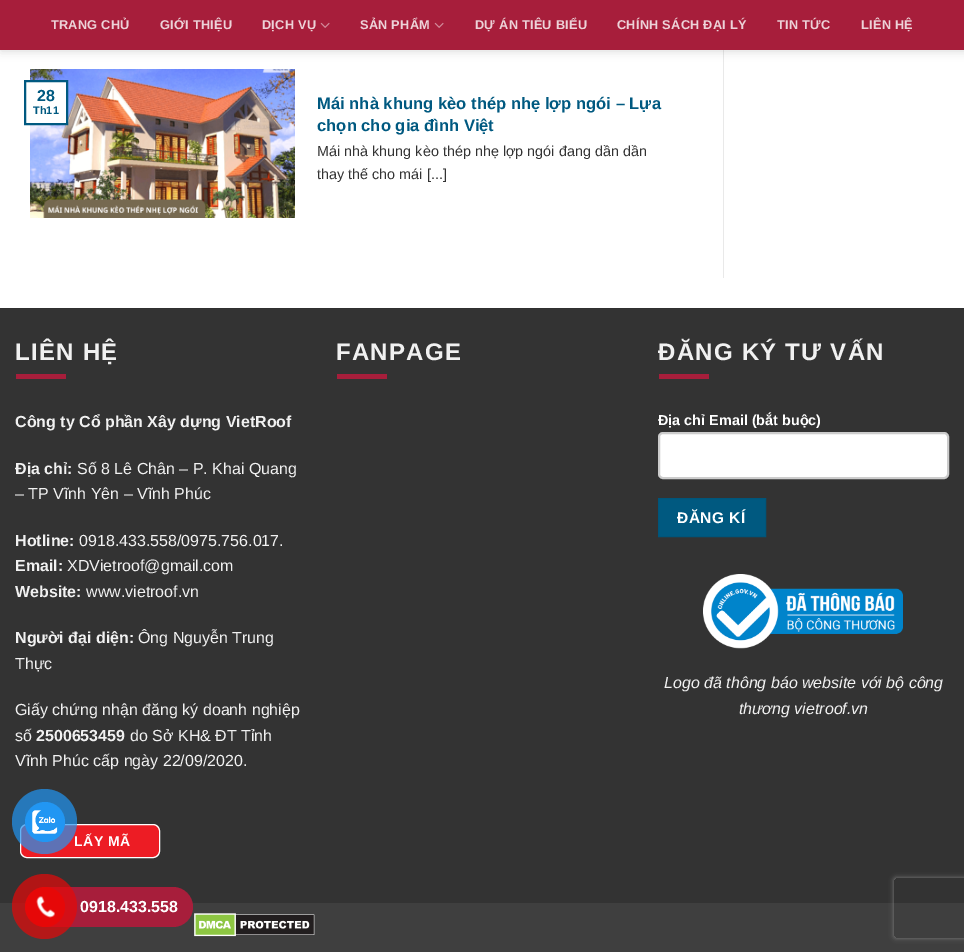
%!PS-Adobe-3.0
%%BoundingBox: 0 0 964 952
%%LanguageLevel: 3
%%Pages: 1
%%EndComments
%%BeginProlog
/setink { 3 { 255 div 3 1 roll } repeat setrgbcolor } def
/usefont { [ exch dup neg 0 0 3 -1 roll 0 0 ] selectfont } def
/drawtext { setink usefont moveto show } def
/fillbox { setink rectfill } def
/setalpha { dup .setfillconstantalpha .setstrokeconstantalpha } def
/disc { newpath 0 360 arc closepath } def
/rrect { 5 dict begin { /r /h /w /y /x } { exch def } forall
  x r add y moveto x w add y 2 copy h add r arct x w add y h add x 1 index r arct
  x y h add x y r arct x y 2 copy exch w add exch r arct closepath end } def
/softshadow { 12 dict begin { /a /b /q /h /w /y /x } { exch def } forall gsave /was 0 def
  9 -2 -9 { dup b mul 4 div /e exch def 1 sub .425 mul 2.718 exch exp 1 add a .99 .min exch div /now exch def
    1 1 now sub 1 was sub div sub setalpha /was now def
    w h .min e 2 mul add 0 gt { x e sub y e sub w e 2 mul add h e 2 mul add
      q e add b .6 mul add w h .min 2 div e add .min 0 .max rrect fill } if } for grestore end } def
/drawimage { 5 dict begin { /h /w /y /x /name } { exch def } forall
  gsave x y translate w h scale
  w h 8 [w 0 0 h 0 0] name (r) file false 3 colorimage grestore end } def
%%EndProlog
%%BeginSetup
<< /PageSize [964 952] /PageUsesTransparency true >> setpagedevice
%%EndSetup
%%Page: 1 1
0 .pushpdf14devicefilter
0 952 translate 1 -1 scale
4 setmiterlimit
0 0 964 952 255 255 255 fillbox
723 50 1 228 233 233 233 fillbox
0 0 0 setink
1 1 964 50 0 5 0.15 softshadow
0 0 964 50 167 30 59 fillbox
/LiberationSans-Bold 12.75 usefont
237 210 216 setink
51 29 moveto 0.25 0 (TRANG CHỦ) ashow
160 29 moveto 0.25 0 (GIỚI THIỆU) ashow
262 29 moveto 0.25 0 (DỊCH VỤ) ashow
(assets/img1.rgb) 320 22 10 6 drawimage
360 29 moveto 0.25 0 (SẢN PHẨM) ashow
(assets/img1.rgb) 434 22 10 6 drawimage
475 29 moveto 0.25 0 (DỰ ÁN TIÊU BIỂU) ashow
617 29 moveto 0.25 0 (CHÍNH SÁCH ĐẠI LÝ) ashow
777 29 moveto 0.25 0 (TIN TỨC) ashow
861 29 moveto 0.25 0 (LIÊN HỆ) ashow
(assets/img2.rgb) 30 69 265 149 drawimage
30 82 36 41 255 255 255 fillbox
0 89 128 setink
2 setlinewidth
25 81 42 43 rectstroke
(28) 37 101 /LiberationSans-Bold 16 0 89 128 drawtext
(Th11) 33 114 /LiberationSans-Bold 11 0 89 128 drawtext
(Mái nhà khung kèo thép nhẹ lợp ngói – Lựa) 317 109 /LiberationSans-Bold 16.6 0 89 128 drawtext
(chọn cho gia đình Việt) 317 131 /LiberationSans-Bold 16.6 0 89 128 drawtext
(Mái nhà khung kèo thép nhẹ lợp ngói đang dần dần) 317 156 /LiberationSans-Regular 14.4 51 51 51 drawtext
(thay thế cho mái [...]) 317 179 /LiberationSans-Regular 14.4 51 51 51 drawtext
0 309 964 594 51 51 51 fillbox
0 308 964 1 48 48 48 fillbox
/LiberationSans-Bold 24 usefont
241 241 241 setink
15 360 moveto 1.25 0 (LIÊN HỆ) ashow
16 374 50 5 167 30 59 fillbox
(Công ty Cổ phần Xây dựng VietRoof) 15 427 /LiberationSans-Bold 16 241 241 241 drawtext
(Địa chỉ:) 15 474 /LiberationSans-Bold 16 241 241 241 drawtext
(Số 8 Lê Chân – P. Khai Quang) 77 474 /LiberationSans-Regular 16 241 241 241 drawtext
(– TP Vĩnh Yên – Vĩnh Phúc) 15 499 /LiberationSans-Regular 16 241 241 241 drawtext
(Hotline:) 15 546 /LiberationSans-Bold 16 241 241 241 drawtext
(0918.433.558/0975.756.017.) 79 546 /LiberationSans-Regular 16 241 241 241 drawtext
(Email:) 15 571 /LiberationSans-Bold 16 241 241 241 drawtext
(XDVietroof@gmail.com) 67 571 /LiberationSans-Regular 16 241 241 241 drawtext
(Website:) 15 597 /LiberationSans-Bold 16 241 241 241 drawtext
(www.vietroof.vn) 86 597 /LiberationSans-Regular 16 241 241 241 drawtext
(Người đại diện:) 15 643 /LiberationSans-Bold 16 241 241 241 drawtext
(Ông Nguyễn Trung) 138 643 /LiberationSans-Regular 16 241 241 241 drawtext
(Thực) 15 669 /LiberationSans-Regular 16 241 241 241 drawtext
(Giấy chứng nhận đăng ký doanh nghiệp) 15 715 /LiberationSans-Regular 16 241 241 241 drawtext
(số) 15 741 /LiberationSans-Regular 16 241 241 241 drawtext
(2500653459) 36 741 /LiberationSans-Bold 16 241 241 241 drawtext
(do Sở KH& ĐT Tỉnh) 130 741 /LiberationSans-Regular 16 241 241 241 drawtext
(Vĩnh Phúc cấp ngày 22/09/2020.) 15 766 /LiberationSans-Regular 16 241 241 241 drawtext
/LiberationSans-Bold 24 usefont
336 360 moveto 1.25 0 (FANPAGE) ashow
337 374 50 5 167 30 59 fillbox
241 241 241 setink
658 360 moveto 1.25 0 (ĐĂNG KÝ TƯ VẤN) ashow
659 374 50 5 167 30 59 fillbox
(Địa chỉ Email \(bắt buộc\)) 658 425 /LiberationSans-Bold 14.4 255 255 255 drawtext
659 433 289 45 4 rrect gsave fill grestore
204 204 204 setink
stroke
0 89 128 setink
658.5 498.5 moveto 765.5 498.5 lineto 765.5 536.5 lineto 658.5 536.5 lineto closepath gsave fill grestore
0 85 122 setink
1 setlinewidth
stroke
/LiberationSans-Bold 15.5 usefont
255 255 255 setink
677 523 moveto 0.5 0 (ĐĂNG KÍ) ashow
(assets/img3.rgb) 703 574 200 75 drawimage
(Logo đã thông báo website với bộ công) 664 688 /LiberationSans-Italic 16 241 241 241 drawtext
(thương vietroof.vn) 739 714 /LiberationSans-Italic 16 241 241 241 drawtext
237 28 36 setink
20.5 824.5 139 33 6.5 rrect gsave fill grestore
255 255 255 setink
stroke
/LiberationSans-Bold 14 usefont
74 846 moveto 0.5 0 (LẤY MÃ) ashow
0 903 964 49 63 63 63 fillbox
(assets/img4.rgb) 194 913 121 24 drawimage
0.7 setalpha
33 150 243 setink
44.5 821.5 32.5 disc fill
1 setalpha
45 822 20 disc fill
(assets/img5.rgb) 32 810 26 24 drawimage
167 30 59 setink
30 887 163 40 20 rrect fill
0.7 setalpha
230 8 8 setink
44.5 906.5 32.5 disc fill
1 setalpha
45 907 20 disc fill
(assets/img6.rgb) 36 896 19 22 drawimage
(0918.433.558) 80 912 /LiberationSans-Bold 16 255 255 255 drawtext
gsave
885 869 moveto 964 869 lineto 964 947 lineto 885 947 lineto closepath 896 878 moveto 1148 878 lineto 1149 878 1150 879 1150 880 curveto 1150 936 lineto 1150 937 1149 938 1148 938 curveto 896 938 lineto 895 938 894 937 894 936 curveto 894 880 lineto 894 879 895 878 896 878 curveto closepath eoclip newpath
128 128 128 setink
894 878 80 60 2 2.5 1 softshadow
grestore
.poppdf14devicefilter showpage
%%EOF
